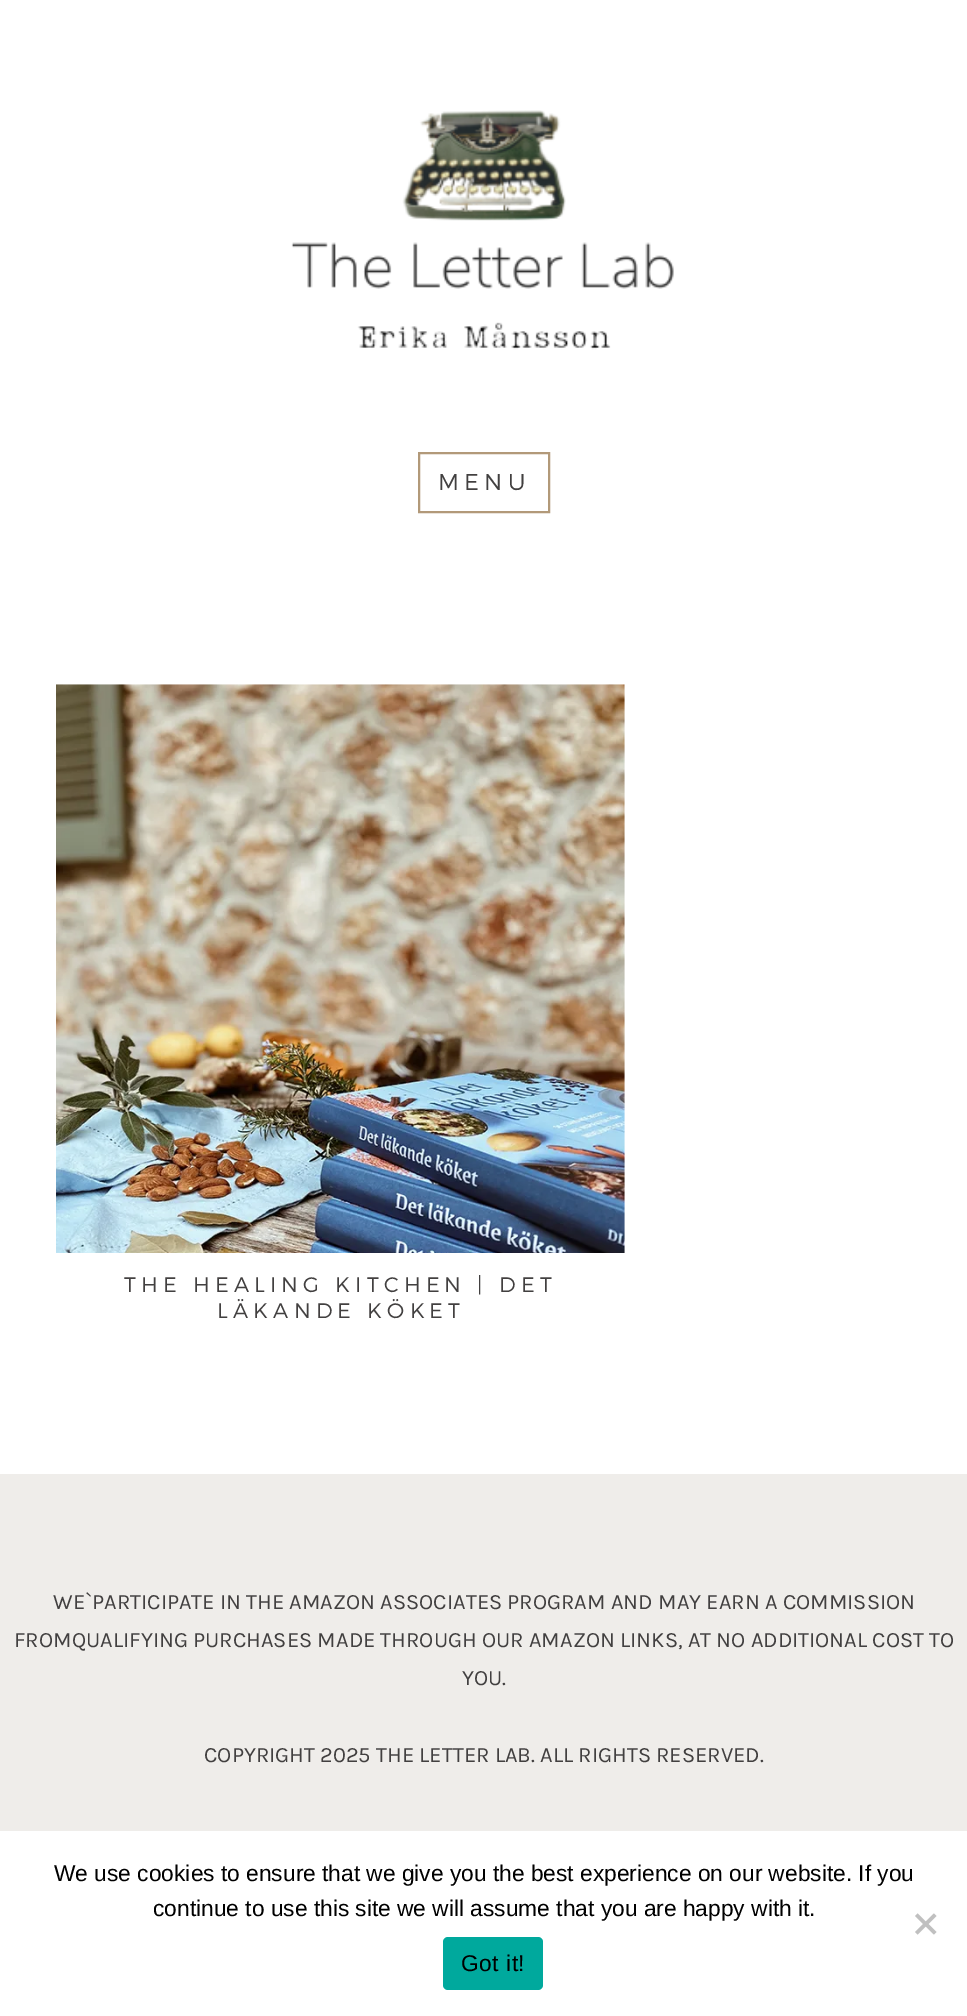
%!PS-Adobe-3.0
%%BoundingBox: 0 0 967 2016
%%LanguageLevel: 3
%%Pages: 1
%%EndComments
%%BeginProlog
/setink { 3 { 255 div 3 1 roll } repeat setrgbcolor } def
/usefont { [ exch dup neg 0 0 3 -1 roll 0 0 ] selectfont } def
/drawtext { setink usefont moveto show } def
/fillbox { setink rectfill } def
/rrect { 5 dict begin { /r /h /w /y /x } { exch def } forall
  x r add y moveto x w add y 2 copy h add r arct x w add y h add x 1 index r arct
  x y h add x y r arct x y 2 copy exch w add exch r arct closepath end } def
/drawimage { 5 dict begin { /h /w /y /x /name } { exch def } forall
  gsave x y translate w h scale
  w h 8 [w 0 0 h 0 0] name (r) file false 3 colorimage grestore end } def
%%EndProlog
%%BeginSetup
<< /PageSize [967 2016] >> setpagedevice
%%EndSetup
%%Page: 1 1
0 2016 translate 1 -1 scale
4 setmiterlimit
0 0 967 2016 255 255 255 fillbox
(assets/img1.rgb) 291 110 383 240 drawimage
178 153 121 setink
2 setlinewidth
419 453 130 59 rectstroke
/Montserrat-Light 22.75 usefont
66 64 64 setink
438 490 moveto 5.25 0 (MENU) ashow
(assets/img2.rgb) 56 684 569 569 drawimage
/Montserrat-Light 21 usefont
124 1292 moveto 5.25 0 (THE HEALING KITCHEN | DET) ashow
217 1318 moveto 5.25 0 (LÄKANDE KÖKET) ashow
0 1474 967 357 239 237 234 fillbox
(WE`PARTICIPATE IN THE AMAZON ASSOCIATES PROGRAM AND MAY EARN A COMMISSION) 53 1609 /Karla-Regular 21.9 66 64 64 drawtext
(FROMQUALIFYING PURCHASES MADE THROUGH OUR AMAZON LINKS, AT NO ADDITIONAL COST TO) 14 1647 /Karla-Regular 21.9 66 64 64 drawtext
(YOU.) 462 1685 /Karla-Regular 21.9 66 64 64 drawtext
(COPYRIGHT 2025 THE LETTER LAB. ALL RIGHTS RESERVED.) 204 1762 /Karla-Regular 21.9 66 64 64 drawtext
(We use cookies to ensure that we give you the best experience on our website. If you) 54 1881 /LiberationSans-Regular 22.75 0 0 0 drawtext
(continue to use this site we will assume that you are happy with it.) 153 1916 /LiberationSans-Regular 22.75 0 0 0 drawtext
192 192 192 setink
934 1913.5 moveto 936.5 1916 lineto 917.5 1934.5 lineto 915 1932 lineto closepath fill
915 1916 moveto 917.5 1913.5 lineto 936.5 1932 lineto 934 1934.5 lineto closepath fill
0 169 157 setink
443 1937 100 53 5 rrect fill
0 0 0 setink
461 1971 moveto 0.5 0 (Got it!) ashow
showpage
%%EOF
